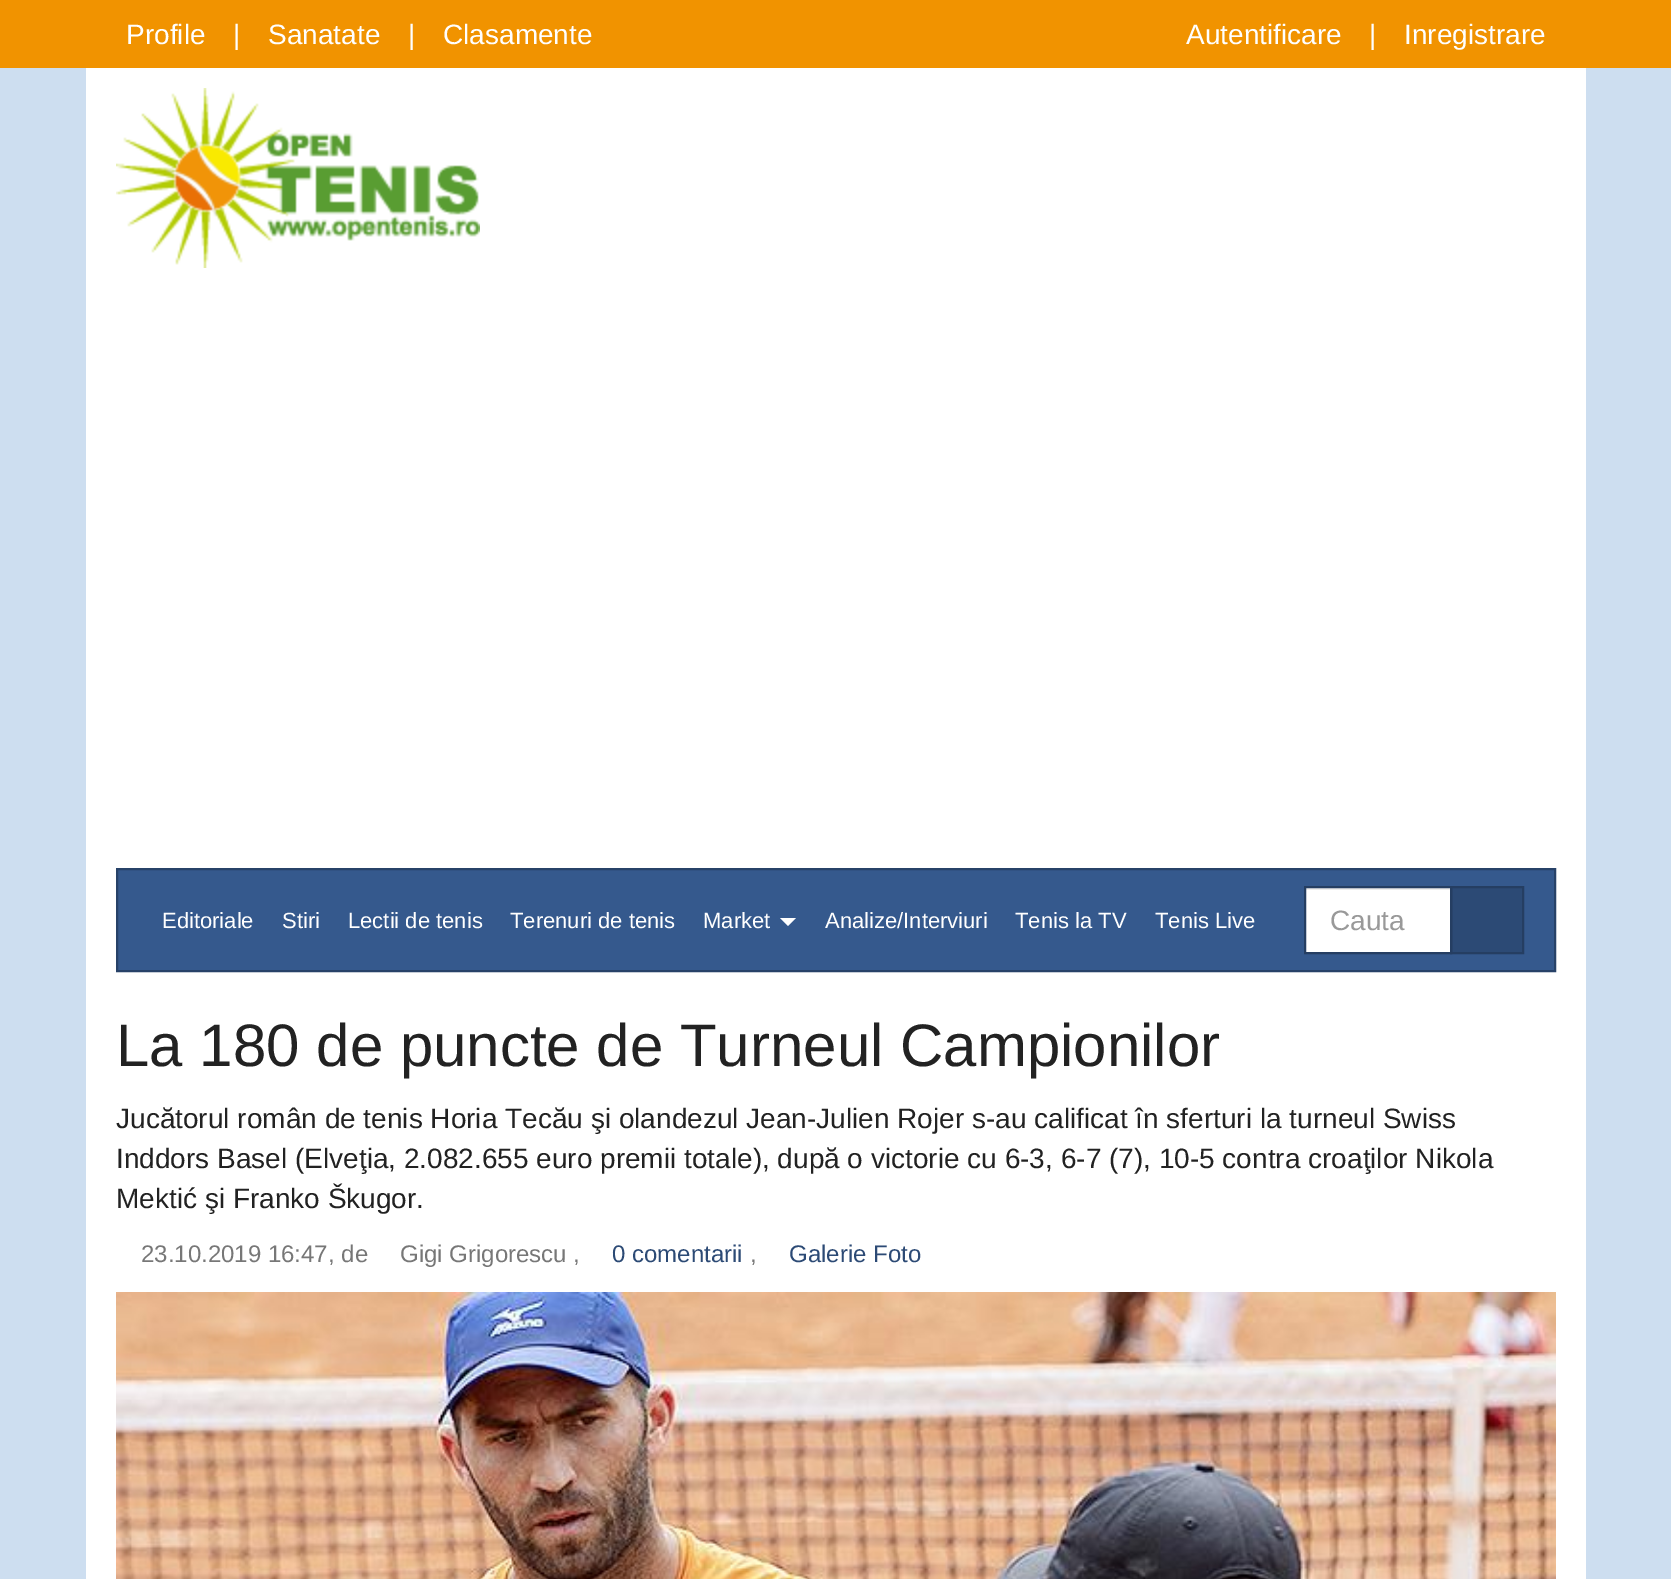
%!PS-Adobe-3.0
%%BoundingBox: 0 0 1671 1579
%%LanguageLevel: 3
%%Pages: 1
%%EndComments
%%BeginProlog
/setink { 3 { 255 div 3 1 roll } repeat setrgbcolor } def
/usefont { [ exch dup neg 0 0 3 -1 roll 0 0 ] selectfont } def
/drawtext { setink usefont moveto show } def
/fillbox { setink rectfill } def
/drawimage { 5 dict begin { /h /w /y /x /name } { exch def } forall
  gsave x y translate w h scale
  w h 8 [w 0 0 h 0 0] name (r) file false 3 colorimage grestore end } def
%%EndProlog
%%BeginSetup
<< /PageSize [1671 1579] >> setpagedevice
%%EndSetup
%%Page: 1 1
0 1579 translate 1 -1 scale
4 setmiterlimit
0 0 1671 1579 205 222 240 fillbox
0 0 1671 68 241 147 0 fillbox
(Profile) 126 44 /LiberationSans-Regular 28 255 255 255 drawtext
(|) 233 44 /LiberationSans-Regular 28 255 255 255 drawtext
(Sanatate) 268 44 /LiberationSans-Regular 28 255 255 255 drawtext
(|) 408 44 /LiberationSans-Regular 28 255 255 255 drawtext
(Clasamente) 443 44 /LiberationSans-Regular 28 255 255 255 drawtext
(Autentificare) 1186 44 /LiberationSans-Regular 28 255 255 255 drawtext
(|) 1369 44 /LiberationSans-Regular 28 255 255 255 drawtext
(Inregistrare) 1404 44 /LiberationSans-Regular 28 255 255 255 drawtext
86 68 1500 1511 255 255 255 fillbox
(assets/img1.rgb) 116 88 364 180 drawimage
53 89 141 setink
117 869 moveto 1555 869 lineto 1555 971 lineto 117 971 lineto closepath gsave fill grestore
39 66 104 setink
2 setlinewidth
stroke
(Editoriale) 162 928 /LiberationSans-Regular 22 255 255 255 drawtext
(Stiri) 282 928 /LiberationSans-Regular 22 255 255 255 drawtext
(Lectii de tenis) 348 928 /LiberationSans-Regular 22 255 255 255 drawtext
(Terenuri de tenis) 510 928 /LiberationSans-Regular 22 255 255 255 drawtext
(Market) 703 928 /LiberationSans-Regular 22 255 255 255 drawtext
780 918 moveto 796 918 lineto 788 926 lineto closepath fill
(Analize/Interviuri) 825 928 /LiberationSans-Regular 22 255 255 255 drawtext
(Tenis la TV) 1015 928 /LiberationSans-Regular 22 255 255 255 drawtext
(Tenis Live) 1155 928 /LiberationSans-Regular 22 255 255 255 drawtext
1306 890 144 62 255 255 255 fillbox
1306 888 144 2 236 236 236 fillbox
44 74 117 setink
1451 887 moveto 1523 887 lineto 1523 953 lineto 1451 953 lineto closepath gsave fill grestore
37 62 98 setink
stroke
1305 887 146 66 rectstroke
(Cauta) 1330 930 /LiberationSans-Regular 28 153 153 153 drawtext
(La 180 de puncte de Turneul Campionilor) 116 1066 /LiberationSans-Regular 60 34 34 34 drawtext
(Jucătorul român de tenis Horia Tecău şi olandezul Jean-Julien Rojer s-au calificat în sferturi la turneul Swiss) 116 1128 /LiberationSans-Regular 28 34 34 34 drawtext
(Inddors Basel \(Elveţia, 2.082.655 euro premii totale\), după o victorie cu 6-3, 6-7 \(7\), 10-5 contra croaţilor Nikola) 116 1168 /LiberationSans-Regular 28 34 34 34 drawtext
(Mektić şi Franko Škugor.) 116 1208 /LiberationSans-Regular 28 34 34 34 drawtext
(23.10.2019 16:47, de) 141 1262 /LiberationSans-Regular 24 119 119 119 drawtext
(Gigi Grigorescu ,) 400 1262 /LiberationSans-Regular 24 119 119 119 drawtext
(0 comentarii) 612 1262 /LiberationSans-Regular 24 44 74 117 drawtext
(,) 750 1262 /LiberationSans-Regular 24 119 119 119 drawtext
(Galerie Foto) 789 1262 /LiberationSans-Regular 24 44 74 117 drawtext
(assets/img2.rgb) 116 1292 1440 287 drawimage
showpage
%%EOF
